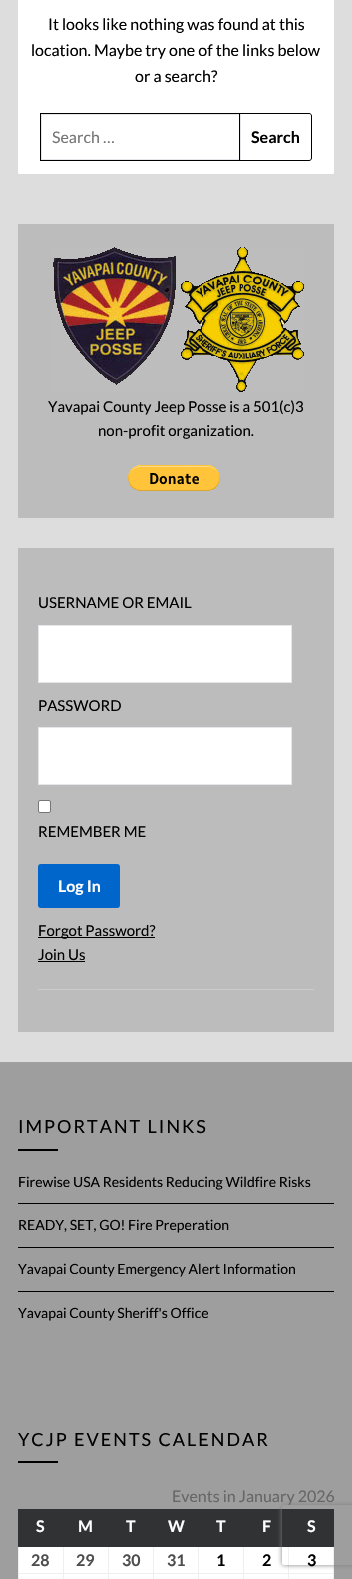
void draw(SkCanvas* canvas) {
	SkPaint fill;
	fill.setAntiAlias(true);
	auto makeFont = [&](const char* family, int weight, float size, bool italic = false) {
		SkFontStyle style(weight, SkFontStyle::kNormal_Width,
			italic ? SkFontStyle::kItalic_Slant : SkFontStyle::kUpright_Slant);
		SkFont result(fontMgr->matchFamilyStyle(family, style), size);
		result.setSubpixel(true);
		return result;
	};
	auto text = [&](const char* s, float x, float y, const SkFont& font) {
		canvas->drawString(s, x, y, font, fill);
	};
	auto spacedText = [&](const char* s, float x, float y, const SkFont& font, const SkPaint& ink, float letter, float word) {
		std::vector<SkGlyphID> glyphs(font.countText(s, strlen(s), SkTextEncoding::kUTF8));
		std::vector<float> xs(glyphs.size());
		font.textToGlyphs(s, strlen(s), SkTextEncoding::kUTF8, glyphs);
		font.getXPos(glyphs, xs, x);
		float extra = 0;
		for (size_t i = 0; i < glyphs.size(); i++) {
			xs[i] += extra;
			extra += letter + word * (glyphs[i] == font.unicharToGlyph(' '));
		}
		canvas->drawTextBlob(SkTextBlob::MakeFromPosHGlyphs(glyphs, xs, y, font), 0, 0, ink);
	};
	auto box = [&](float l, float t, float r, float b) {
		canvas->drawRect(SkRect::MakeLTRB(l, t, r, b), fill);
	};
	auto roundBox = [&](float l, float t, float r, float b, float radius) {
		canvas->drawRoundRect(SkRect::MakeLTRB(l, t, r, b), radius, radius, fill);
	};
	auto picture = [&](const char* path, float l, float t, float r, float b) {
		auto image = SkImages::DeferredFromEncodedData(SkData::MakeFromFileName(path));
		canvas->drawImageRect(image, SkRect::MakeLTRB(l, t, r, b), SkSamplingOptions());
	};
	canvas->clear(0xFFDDDDDD);
	fill.setColor(0xFFFFFFFF);
	roundBox(18, -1, 334, 174, 1);
	fill.setColor(0xFF000000);
	box(40, 113, 241, 114);
	box(40, 160, 241, 161);
	box(40, 113, 41, 161);
	fill.setStyle(SkPaint::kStroke_Style);
	fill.setStrokeWidth(1);
	fill.setColor(0xFFE5E6E9);
	canvas->drawRect(SkRect::MakeLTRB(41.5f, 114.5f, 240.5f, 159.5f), fill);
	fill.setColor(0xFF000000);
	canvas->drawPath(SkPathBuilder().moveTo(239.5f, 113.5f).lineTo(309, 113.5f).cubicTo(310.5f, 113.5f, 311.5f, 114.5f, 311.5f, 116).lineTo(311.5f, 158).cubicTo(311.5f, 159.5f, 310.5f, 160.5f, 309, 160.5f).lineTo(239.5f, 160.5f).close().detach(), fill);
	fill.setStyle(SkPaint::kFill_Style);
	fill.setColor(0xFFBCBCBC);
	roundBox(18, 224, 334, 518, 1);
	picture("image0.png", 53, 247, 304, 392);
	picture("image1.png", 128, 465, 220, 491);
	roundBox(18, 548, 334, 1032, 1);
	fill.setColor(0xFFFFFFFF);
	canvas->drawRect(SkRect::MakeLTRB(38.5f, 625.5f, 291.5f, 682.5f), fill);
	fill.setStyle(SkPaint::kStroke_Style);
	fill.setColor(0xFFE5E6E9);
	canvas->drawRect(SkRect::MakeLTRB(38.5f, 625.5f, 291.5f, 682.5f), fill);
	fill.setStyle(SkPaint::kFill_Style);
	fill.setColor(0xFFFFFFFF);
	canvas->drawRect(SkRect::MakeLTRB(38.5f, 727.5f, 291.5f, 784.5f), fill);
	fill.setStyle(SkPaint::kStroke_Style);
	fill.setColor(0xFFE5E6E9);
	canvas->drawRect(SkRect::MakeLTRB(38.5f, 727.5f, 291.5f, 784.5f), fill);
	fill.setStyle(SkPaint::kFill_Style);
	fill.setColor(0xFFFFFFFF);
	canvas->drawRoundRect(SkRect::MakeLTRB(38.5f, 800.5f, 50.5f, 812.5f), 1.5f, 1.5f, fill);
	fill.setStyle(SkPaint::kStroke_Style);
	fill.setColor(0xFF767676);
	canvas->drawRoundRect(SkRect::MakeLTRB(38.5f, 800.5f, 50.5f, 812.5f), 1.5f, 1.5f, fill);
	fill.setStyle(SkPaint::kFill_Style);
	fill.setColor(0xFF0066CC);
	roundBox(38, 864, 120, 908, 3);
	fill.setColor(0xFF000000);
	box(38, 937, 155, 938);
	box(38, 961, 85, 962);
	fill.setColor(0xFFCCCCCC);
	box(38, 989, 314, 990);
	fill.setColor(0xFF9E9E9E);
	box(0, 1062, 352, 1579);
	fill.setColor(0xFF000000);
	box(18, 1149, 58, 1151);
	box(18, 1203, 334, 1204);
	box(18, 1247, 334, 1248);
	box(18, 1291, 334, 1292);
	box(18, 1461, 58, 1463);
	fill.setColor(0xFFFFFFFF);
	box(19, 1547, 333, 1579);
	fill.setColor(0xFFEFEFEF);
	box(288, 1573, 334, 1574);
	box(288, 1573, 289, 1579);
	box(243, 1573, 289, 1574);
	box(243, 1573, 244, 1579);
	box(198, 1573, 244, 1574);
	box(198, 1573, 199, 1579);
	box(153, 1573, 199, 1574);
	box(153, 1573, 154, 1579);
	box(108, 1573, 154, 1574);
	box(108, 1573, 109, 1579);
	box(63, 1573, 109, 1574);
	box(63, 1573, 64, 1579);
	box(18, 1573, 64, 1574);
	box(18, 1544, 19, 1579);
	box(333, 1544, 334, 1579);
	box(63, 1544, 64, 1574);
	box(108, 1544, 109, 1574);
	box(153, 1544, 154, 1574);
	box(198, 1544, 199, 1574);
	box(243, 1544, 244, 1574);
	box(288, 1544, 289, 1574);
	fill.setColor(0xFF313233);
	box(18, 1543, 334, 1547);
	box(18, 1509, 334, 1543);
	canvas->save();
	canvas->clipPath(SkPathBuilder(SkPathFillType::kEvenOdd).moveTo(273, 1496).lineTo(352, 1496).lineTo(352, 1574).lineTo(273, 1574).close().moveTo(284, 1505).lineTo(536, 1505).cubicTo(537, 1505, 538, 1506, 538, 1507).lineTo(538, 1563).cubicTo(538, 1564, 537, 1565, 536, 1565).lineTo(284, 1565).cubicTo(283, 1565, 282, 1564, 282, 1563).lineTo(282, 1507).cubicTo(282, 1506, 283, 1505, 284, 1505).close().detach(), true);
	fill.setColor(0xFF808080);
	fill.setMaskFilter(SkMaskFilter::MakeBlur(kNormal_SkBlurStyle, 2.5f));
	canvas->drawRoundRect(SkRect::MakeLTRB(282, 1505, 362, 1565), 2, 2, fill);
	fill.setMaskFilter(nullptr);
	canvas->restore();
	auto font1 = makeFont("Lato", 400, 16);
	fill.setColor(0xFF000000);
	text("It looks like nothing was found at this", 48, 30, font1);
	text("location. Maybe try one of the links below", 31, 56, font1);
	text("or a search?", 135, 82, font1);
	fill.setColor(0xFF757575);
	text("Search …", 52, 143, font1);
	auto font2 = makeFont("Lato", 700, 16);
	fill.setColor(0xFF000000);
	text("Search", 251, 143, font2);
	auto font3 = makeFont("Lato", 400, 15);
	text("Yavapai County Jeep Posse is a 501(c)3", 48, 412, font3);
	text("non-profit organization.", 98, 436, font3);
	text("USERNAME OR EMAIL", 38, 608, font3);
	text("PASSWORD", 38, 711, font3);
	text("REMEMBER ME", 38, 837, font3);
	fill.setColor(0xFFFFFFFF);
	text("Log In", 58, 892, font2);
	fill.setColor(0xFF000000);
	text("Forgot Password?", 38, 936, font3);
	text("Join Us", 38, 960, font3);
	auto font4 = makeFont("Lato", 400, 18);
	spacedText("IMPORTANT LINKS", 18, 1133, font4, fill, 2, 0);
	auto font5 = makeFont("Lato", 400, 14);
	text("Firewise USA Residents Reducing Wildfire Risks", 18, 1187, font5);
	text("READY, SET, GO! Fire Preperation", 18, 1230, font5);
	text("Yavapai County Emergency Alert Information", 18, 1274, font5);
	text("Yavapai County Sheriff's Office", 18, 1318, font5);
	spacedText("YCJP EVENTS CALENDAR", 18, 1446, font4, fill, 2, 0);
	fill.setColor(0xFF666666);
	text("Events in January 2026", 172, 1502, font1);
	fill.setColor(0xFFFFFFFF);
	text("S", 36, 1532, font2);
	text("M", 78, 1532, font2);
	text("T", 126, 1532, font2);
	text("W", 168, 1532, font2);
	text("T", 216, 1532, font2);
	text("F", 262, 1532, font2);
	text("S", 307, 1532, font2);
	fill.setColor(0xFF4D4D4D);
	text("28", 31, 1566, font2);
	text("29", 76, 1566, font2);
	text("30", 122, 1566, font2);
	text("31", 167, 1566, font2);
	fill.setColor(0xFF000000);
	text("1", 216, 1566, font2);
	text("2", 262, 1566, font2);
	text("3", 307, 1566, font2);
}
